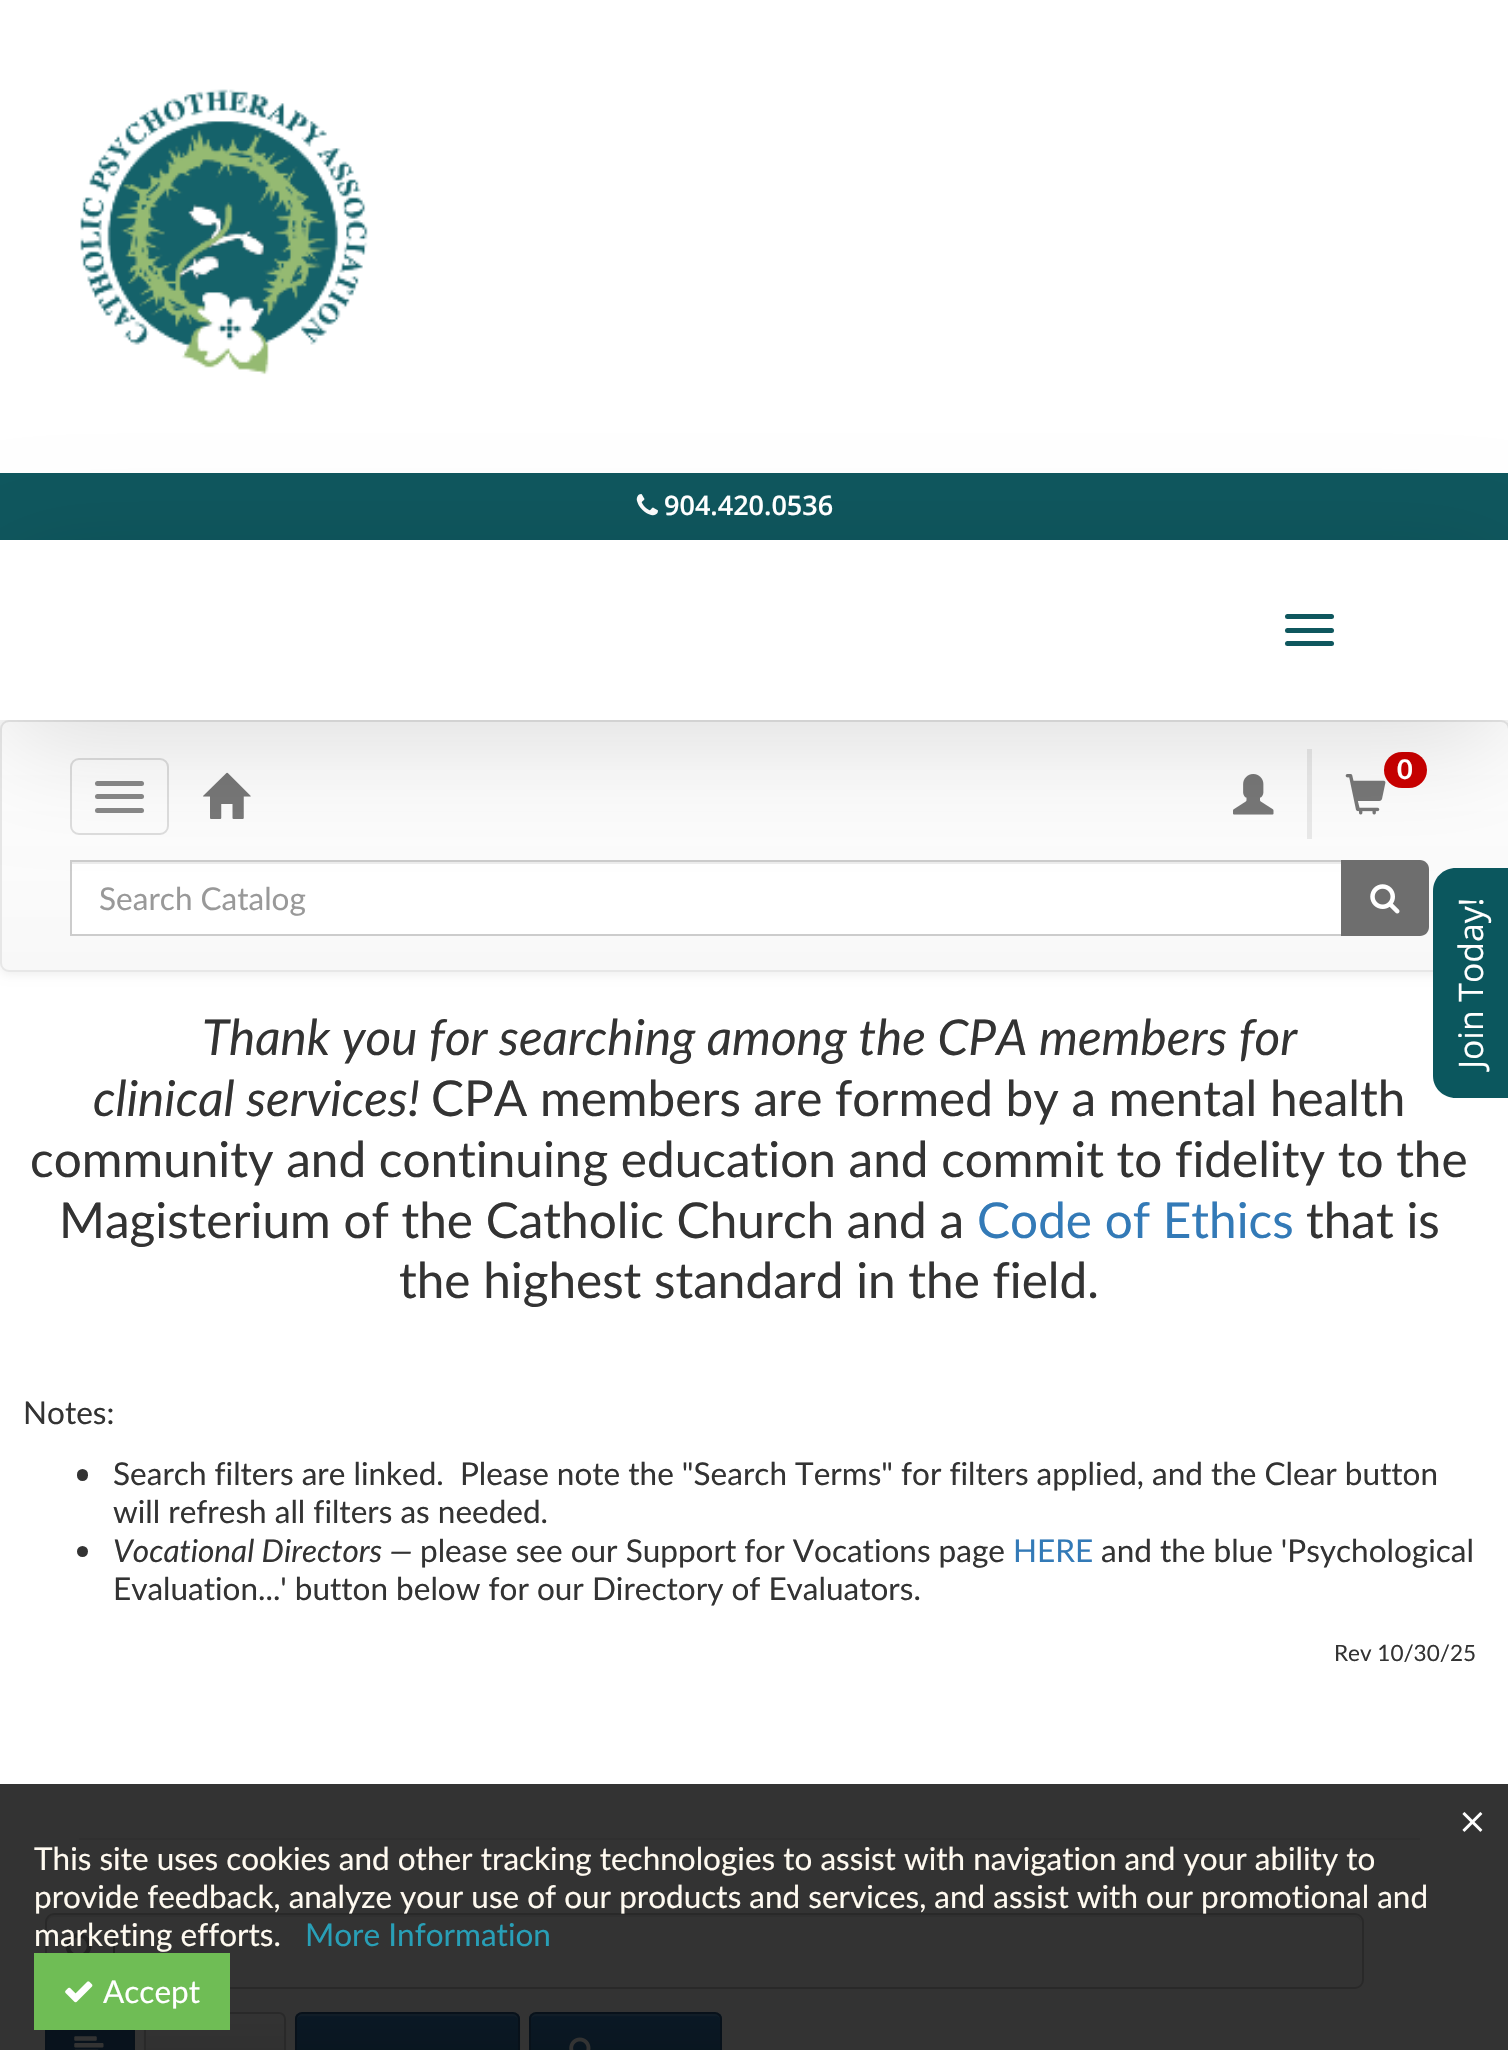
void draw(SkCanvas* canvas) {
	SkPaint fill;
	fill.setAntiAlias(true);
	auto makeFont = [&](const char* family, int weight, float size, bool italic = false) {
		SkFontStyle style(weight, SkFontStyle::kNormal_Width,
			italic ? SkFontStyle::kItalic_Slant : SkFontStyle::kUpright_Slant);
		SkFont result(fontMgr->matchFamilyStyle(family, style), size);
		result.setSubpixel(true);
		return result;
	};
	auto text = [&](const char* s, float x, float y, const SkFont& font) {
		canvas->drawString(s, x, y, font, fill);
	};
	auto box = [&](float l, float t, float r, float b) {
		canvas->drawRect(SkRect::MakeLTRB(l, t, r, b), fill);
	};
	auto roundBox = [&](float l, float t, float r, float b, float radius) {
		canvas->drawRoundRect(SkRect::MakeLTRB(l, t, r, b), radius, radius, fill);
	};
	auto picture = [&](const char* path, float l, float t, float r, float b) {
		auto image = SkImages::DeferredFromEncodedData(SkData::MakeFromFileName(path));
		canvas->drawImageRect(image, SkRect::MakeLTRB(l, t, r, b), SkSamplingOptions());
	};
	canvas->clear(0xFFFFFFFF);
	picture("image0.png", 80, 89, 368, 375);
	fill.setColor(0xFF0F575E);
	box(0, 473, 1508, 540);
	picture("image1.png", 636, 494, 658, 516);
	fill.setColor(0x12000000);
	fill.setMaskFilter(SkMaskFilter::MakeBlur(kNormal_SkBlurStyle, 5.5f));
	canvas->drawRoundRect(SkRect::MakeLTRB(0, 722, 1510, 974), 9, 9, fill);
	fill.setMaskFilter(nullptr);
	canvas->save();
	canvas->clipPath(SkPathBuilder().moveTo(9, 720).lineTo(1501, 720).cubicTo(1506, 720, 1510, 724, 1510, 729).lineTo(1510, 963).cubicTo(1510, 968, 1506, 972, 1501, 972).lineTo(9, 972).cubicTo(4, 972, 0, 968, 0, 963).lineTo(0, 729).cubicTo(0, 724, 4, 720, 9, 720).close().detach(), true);
	{
		const SkColor colors[] = {0xFFFFFFFF, 0xFFF8F8F8};
		const float stops[] = {0, 1};
		const SkPoint ends[] = {{755, 722}, {755, 970}};
		fill.setShader(SkGradientShader::MakeLinear(ends, colors, stops, 2, SkTileMode::kClamp));
		fill.setAlpha(255);
	}
	box(0, 722, 1508, 970);
	canvas->restore();
	fill.setStyle(SkPaint::kStroke_Style);
	fill.setStrokeWidth(2);
	fill.setShader(nullptr);
	fill.setColor(0xFFE7E7E7);
	canvas->drawRoundRect(SkRect::MakeLTRB(1, 721, 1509, 971), 8, 8, fill);
	fill.setColor(0xFFDDDDDD);
	canvas->drawRoundRect(SkRect::MakeLTRB(71, 759, 168, 834), 8, 8, fill);
	fill.setStyle(SkPaint::kFill_Style);
	fill.setColor(0xFF888888);
	roundBox(95, 781, 144, 786, 2.5f);
	roundBox(95, 794, 144, 799, 2.5f);
	roundBox(95, 808, 144, 813, 2.5f);
	fill.setColor(0xFFE9E9E9);
	box(1307, 749, 1312, 839);
	picture("image2.png", 1345, 774, 1386, 815);
	fill.setColor(0xFFCC0000);
	roundBox(1384, 752, 1427, 788, 18);
	picture("image3.png", 1233, 774, 1274, 815);
	picture("image4.png", 203, 772, 251, 819);
	fill.setColor(0xFFFFFFFF);
	box(72, 864, 1341, 934);
	fill.setColor(0xFFECECEC);
	box(72, 862, 1341, 864);
	fill.setStyle(SkPaint::kStroke_Style);
	fill.setColor(0xFFCCCCCC);
	canvas->drawRect(SkRect::MakeLTRB(71, 861, 1342, 935), fill);
	fill.setStyle(SkPaint::kFill_Style);
	fill.setColor(0xFF6E6E6E);
	canvas->drawPath(SkPathBuilder().moveTo(1341, 860).lineTo(1420, 860).cubicTo(1425, 860, 1429, 864, 1429, 869).lineTo(1429, 927).cubicTo(1429, 932, 1425, 936, 1420, 936).lineTo(1341, 936).close().detach(), fill);
	picture("image5.png", 1370, 884, 1400, 914);
	fill.setColor(0x24000000);
	fill.setMaskFilter(SkMaskFilter::MakeBlur(kNormal_SkBlurStyle, 56));
	canvas->drawRect(SkRect::MakeLTRB(5, 567, 1505, 738), fill);
	fill.setMaskFilter(nullptr);
	fill.setColor(0xFFFFFFFF);
	box(0, 540, 1508, 720);
	fill.setColor(0xFF0F575E);
	roundBox(1285, 614, 1334, 619, 2.5f);
	roundBox(1285, 628, 1334, 633, 2.5f);
	roundBox(1285, 641, 1334, 646, 2.5f);
	fill.setColor(0xFF0B575E);
	canvas->drawPath(SkPathBuilder().moveTo(1433, 1076).lineTo(1433, 891).cubicTo(1433, 878, 1443, 868, 1456, 868).lineTo(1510, 868).lineTo(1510, 1098).lineTo(1456, 1098).cubicTo(1443, 1098, 1433, 1088, 1433, 1076).close().detach(), fill);
	fill.setColor(0xFFEEEEEE);
	box(79, 1838, 1420, 1840);
	fill.setColor(0xFFECECEC);
	canvas->drawPath(SkPathBuilder().moveTo(54, 1917).lineTo(1354, 1917).cubicTo(1358, 1917, 1361, 1920, 1361, 1924).lineTo(1361, 1922).cubicTo(1361, 1918, 1358, 1915, 1354, 1915).lineTo(54, 1915).cubicTo(50, 1915, 47, 1918, 47, 1922).lineTo(47, 1924).cubicTo(47, 1920, 50, 1917, 54, 1917).close().detach(), fill);
	fill.setStyle(SkPaint::kStroke_Style);
	fill.setColor(0xFFCCCCCC);
	canvas->drawRoundRect(SkRect::MakeLTRB(46, 1914, 1363, 1988), 8, 8, fill);
	fill.setStyle(SkPaint::kFill_Style);
	fill.setColor(0xFFA2A2A2);
	box(113, 1933, 115, 1953);
	picture("image8.png", 65, 1933, 92, 1953);
	fill.setColor(0xFF265A88);
	box(47, 2030, 133, 2050);
	fill.setStyle(SkPaint::kStroke_Style);
	fill.setColor(0xFF245580);
	canvas->drawRect(SkRect::MakeLTRB(46, 2013, 134, 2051), fill);
	picture("image9.png", 74, 2036, 104, 2050);
	fill.setStyle(SkPaint::kFill_Style);
	fill.setColor(0x12000000);
	fill.setMaskFilter(SkMaskFilter::MakeBlur(kNormal_SkBlurStyle, 1));
	canvas->drawRoundRect(SkRect::MakeLTRB(144, 2014, 286, 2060), 7, 7, fill);
	fill.setMaskFilter(nullptr);
	canvas->save();
	canvas->clipPath(SkPathBuilder().moveTo(151, 2012).lineTo(279, 2012).cubicTo(283, 2012, 286, 2015, 286, 2019).lineTo(286, 2081).cubicTo(286, 2085, 283, 2088, 279, 2088).lineTo(151, 2088).cubicTo(147, 2088, 144, 2085, 144, 2081).lineTo(144, 2019).cubicTo(144, 2015, 147, 2012, 151, 2012).close().detach(), true);
	{
		const SkColor colors[] = {0xFFFFFFFF, 0xFFE0E0E0};
		const float stops[] = {0, 1};
		const SkPoint ends[] = {{215, 2014}, {215, 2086}};
		fill.setShader(SkGradientShader::MakeLinear(ends, colors, stops, 2, SkTileMode::kClamp));
		fill.setAlpha(255);
	}
	box(146, 2014, 286, 2050);
	canvas->restore();
	fill.setStyle(SkPaint::kStroke_Style);
	fill.setShader(nullptr);
	fill.setColor(0xFFCCCCCC);
	canvas->drawRoundRect(SkRect::MakeLTRB(145, 2013, 285, 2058), 6, 6, fill);
	fill.setStyle(SkPaint::kFill_Style);
	fill.setColor(0x12000000);
	fill.setMaskFilter(SkMaskFilter::MakeBlur(kNormal_SkBlurStyle, 1));
	canvas->drawRoundRect(SkRect::MakeLTRB(295, 2014, 520, 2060), 7, 7, fill);
	fill.setMaskFilter(nullptr);
	canvas->save();
	canvas->clipPath(SkPathBuilder().moveTo(302, 2012).lineTo(513, 2012).cubicTo(517, 2012, 520, 2015, 520, 2019).lineTo(520, 2081).cubicTo(520, 2085, 517, 2088, 513, 2088).lineTo(302, 2088).cubicTo(298, 2088, 295, 2085, 295, 2081).lineTo(295, 2019).cubicTo(295, 2015, 298, 2012, 302, 2012).close().detach(), true);
	{
		const SkColor colors[] = {0xFF337AB7, 0xFF265A88};
		const float stops[] = {0, 1};
		const SkPoint ends[] = {{407, 2014}, {407, 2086}};
		fill.setShader(SkGradientShader::MakeLinear(ends, colors, stops, 2, SkTileMode::kClamp));
		fill.setAlpha(255);
	}
	box(295, 2014, 520, 2050);
	canvas->restore();
	fill.setShader(nullptr);
	fill.setColor(0xFF528EC1);
	canvas->drawPath(SkPathBuilder().moveTo(302, 2016).lineTo(513, 2016).cubicTo(515, 2016, 518, 2018, 518, 2020).cubicTo(518, 2017, 516, 2014, 513, 2014).lineTo(301, 2014).cubicTo(298, 2015, 297, 2017, 297, 2020).cubicTo(297, 2018, 299, 2016, 302, 2016).close().detach(), fill);
	fill.setStyle(SkPaint::kStroke_Style);
	fill.setColor(0xFF245580);
	canvas->drawRoundRect(SkRect::MakeLTRB(296, 2013, 519, 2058), 6, 6, fill);
	canvas->save();
	canvas->clipPath(SkPathBuilder().moveTo(536, 2012).lineTo(715, 2012).cubicTo(719, 2012, 722, 2015, 722, 2019).lineTo(722, 2081).cubicTo(722, 2085, 719, 2088, 715, 2088).lineTo(536, 2088).cubicTo(532, 2088, 529, 2085, 529, 2081).lineTo(529, 2019).cubicTo(529, 2015, 532, 2012, 536, 2012).close().detach(), true);
	fill.setStyle(SkPaint::kFill_Style);
	{
		const SkColor colors[] = {0xFF337AB7, 0xFF265A88};
		const float stops[] = {0, 1};
		const SkPoint ends[] = {{626, 2014}, {626, 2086}};
		fill.setShader(SkGradientShader::MakeLinear(ends, colors, stops, 2, SkTileMode::kClamp));
		fill.setAlpha(255);
	}
	box(529, 2014, 722, 2050);
	canvas->restore();
	fill.setShader(nullptr);
	fill.setColor(0xFF528EC1);
	canvas->drawPath(SkPathBuilder().moveTo(536, 2016).lineTo(716, 2016).cubicTo(718, 2016, 720, 2018, 720, 2020).cubicTo(720, 2017, 719, 2015, 716, 2014).lineTo(535, 2014).cubicTo(532, 2015, 531, 2017, 531, 2020).cubicTo(531, 2018, 533, 2016, 536, 2016).close().detach(), fill);
	fill.setStyle(SkPaint::kStroke_Style);
	fill.setColor(0xFF245580);
	canvas->drawRoundRect(SkRect::MakeLTRB(530, 2013, 721, 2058), 6, 6, fill);
	picture("image10.png", 569, 2037, 591, 2050);
	fill.setStyle(SkPaint::kFill_Style);
	fill.setColor(0xCC000000);
	box(0, 1784, 1508, 2050);
	picture("image6.png", 1462, 1812, 1483, 1832);
	fill.setColor(0xFF6FBD55);
	box(34, 1953, 230, 2030);
	picture("image7.png", 65, 1981, 93, 2003);
	fill.setColor(0xFF333333);
	roundBox(77, 1469, 88, 1481, 5.5f);
	canvas->drawCircle(82.5f, 1551.5f, 5.5f, fill);
	auto font1 = makeFont("Open Sans", 600, 27);
	fill.setColor(0xFFFFFFFF);
	text("904.420.0536", 664, 515, font1);
	auto font2 = makeFont("Lato", 700, 27);
	text("0", 1397, 779, font2);
	auto font3 = makeFont("Lato", 400, 31.5f);
	fill.setColor(0xFF999999);
	text("Search Catalog", 99, 910, font3);
	auto font4 = makeFont("Open Sans", 400, 33.75f);
	fill.setColor(0xFFFFFFFF);
	canvas->save();
	canvas->rotate(-90, 1483, 1069);
	text("Join Today!", 1483, 1069, font4);
	canvas->restore();
	fill.setColor(0xFFFFFAF0);
	text("This site uses cookies and other tracking technologies to assist with navigation and your ability to", 34, 1870, font3);
	text("provide feedback, analyze your use of our products and services, and assist with our promotional and", 34, 1908, font3);
	text("marketing efforts.", 34, 1946, font3);
	fill.setColor(0xFF289FB7);
	text("More Information", 305, 1946, font3);
	fill.setColor(0xFFFFFFFF);
	text("Accept", 103, 2003, font3);
	auto font5 = makeFont("Lato", 400, 49.5f, true);
	fill.setColor(0xFF333333);
	text("Thank you for searching among the CPA members for", 202, 1055, font5);
	text("clinical services!", 93, 1116, font5);
	auto font6 = makeFont("Lato", 400, 49.5f);
	text("CPA members are formed by a mental health", 431, 1116, font6);
	text("community and continuing education and commit to fidelity to the", 30, 1177, font6);
	text("Magisterium of the Catholic Church and a", 59, 1238, font6);
	fill.setColor(0xFF337AB7);
	text("Code of Ethics", 977, 1238, font6);
	fill.setColor(0xFF333333);
	text("that is", 1306, 1238, font6);
	text("the highest standard in the field.", 399, 1298, font6);
	text("Notes:", 23, 1424, font3);
	text("Search filters are linked.  Please note the \"Search Terms\" for filters applied, and the Clear button", 113, 1485, font3);
	text("will refresh all filters as needed.", 113, 1523, font3);
	auto font7 = makeFont("Lato", 400, 31.5f, true);
	text("Vocational Directors —", 113, 1562, font7);
	text("please see our Support for Vocations page", 420, 1562, font3);
	fill.setColor(0xFF337AB7);
	text("HERE", 1013, 1562, font3);
	fill.setColor(0xFF333333);
	text("and the blue 'Psychological", 1101, 1562, font3);
	text("Evaluation...' button below for our Directory of Evaluators.", 113, 1600, font3);
	auto font8 = makeFont("Lato", 400, 22.5f);
	text("Rev 10/30/25", 1334, 1661, font8);
}
